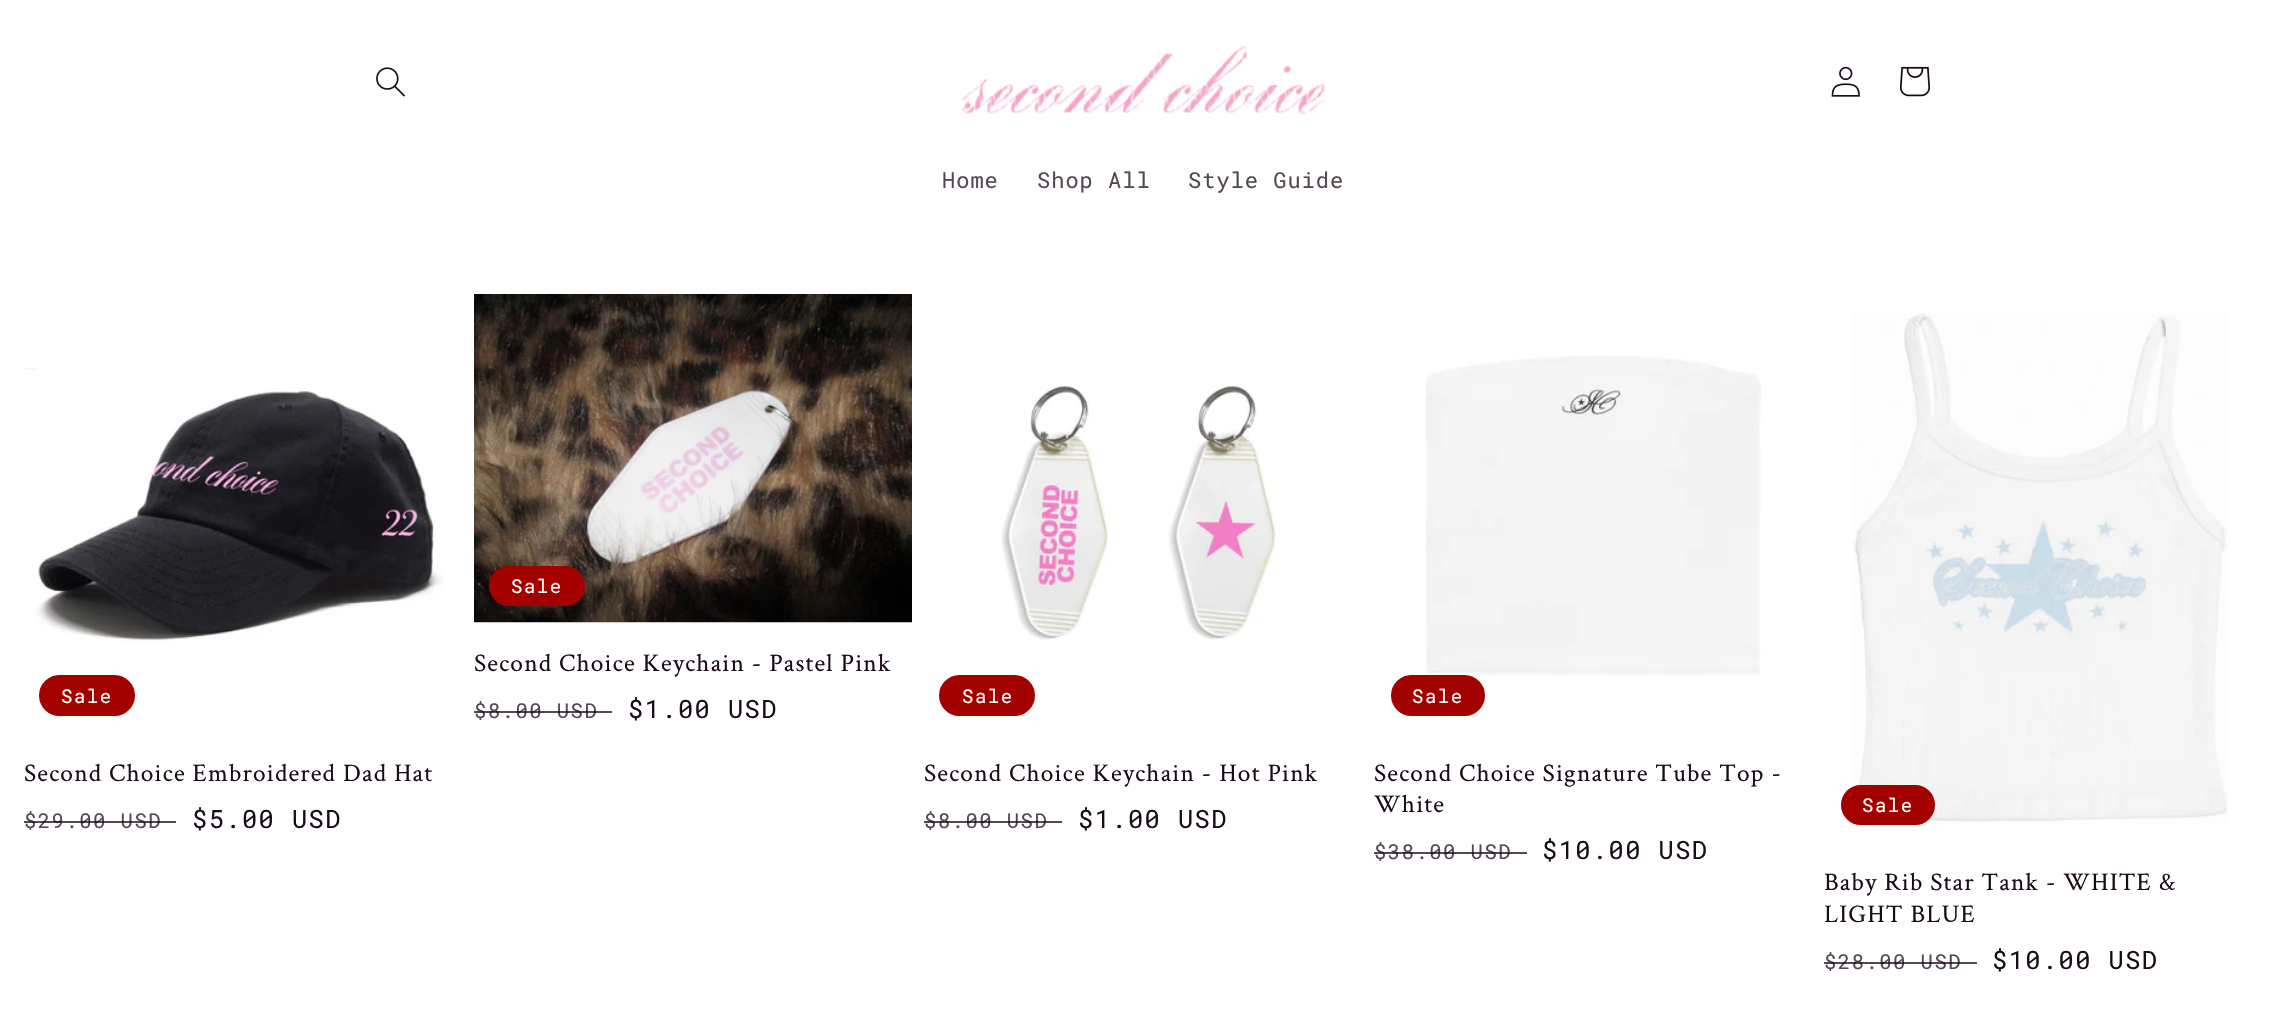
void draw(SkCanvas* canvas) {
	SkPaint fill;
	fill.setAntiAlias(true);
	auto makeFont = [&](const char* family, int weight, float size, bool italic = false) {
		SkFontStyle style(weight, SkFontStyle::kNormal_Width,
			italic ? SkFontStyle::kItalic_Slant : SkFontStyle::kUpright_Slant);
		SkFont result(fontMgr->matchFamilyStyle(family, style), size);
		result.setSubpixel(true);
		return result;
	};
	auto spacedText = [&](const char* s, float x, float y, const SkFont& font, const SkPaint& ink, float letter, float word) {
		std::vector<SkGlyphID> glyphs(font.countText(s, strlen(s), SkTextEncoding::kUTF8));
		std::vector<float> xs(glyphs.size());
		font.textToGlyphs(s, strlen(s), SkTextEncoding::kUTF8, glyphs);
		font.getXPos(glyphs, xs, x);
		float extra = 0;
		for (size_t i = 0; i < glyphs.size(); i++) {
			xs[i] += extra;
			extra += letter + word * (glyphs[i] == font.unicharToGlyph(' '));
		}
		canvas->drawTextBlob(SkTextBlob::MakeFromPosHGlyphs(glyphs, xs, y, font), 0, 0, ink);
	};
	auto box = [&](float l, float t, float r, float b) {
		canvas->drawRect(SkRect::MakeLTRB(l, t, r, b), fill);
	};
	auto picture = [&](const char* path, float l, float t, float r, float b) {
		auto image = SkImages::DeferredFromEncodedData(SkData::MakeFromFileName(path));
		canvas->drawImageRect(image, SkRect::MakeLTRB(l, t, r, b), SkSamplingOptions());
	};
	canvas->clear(0xFFFFFFFF);
	picture("image0.png", 376, 67, 405, 97);
	picture("image1.png", 961, 46, 1325, 115);
	picture("image2.png", 1831, 66, 1860, 97);
	picture("image3.png", 1900, 66, 1930, 97);
	picture("image4.png", 474, 294, 912, 623);
	fill.setColor(0xFFA30000);
	canvas->drawRoundRect(SkRect::MakeLTRB(490, 567, 584, 605), 19, 19, fill);
	fill.setStyle(SkPaint::kStroke_Style);
	fill.setStrokeWidth(2);
	canvas->drawRoundRect(SkRect::MakeLTRB(490, 567, 584, 605), 19, 19, fill);
	picture("image5.png", 24, 368, 443, 643);
	fill.setStyle(SkPaint::kFill_Style);
	canvas->drawRoundRect(SkRect::MakeLTRB(40, 676, 134, 715), 19.5f, 19.5f, fill);
	fill.setStyle(SkPaint::kStroke_Style);
	canvas->drawRoundRect(SkRect::MakeLTRB(40, 676, 134, 715), 19.5f, 19.5f, fill);
	picture("image6.png", 1001, 386, 1276, 640);
	fill.setStyle(SkPaint::kFill_Style);
	canvas->drawRoundRect(SkRect::MakeLTRB(940, 676, 1034, 715), 19.5f, 19.5f, fill);
	fill.setStyle(SkPaint::kStroke_Style);
	canvas->drawRoundRect(SkRect::MakeLTRB(940, 676, 1034, 715), 19.5f, 19.5f, fill);
	picture("image7.png", 1426, 355, 1762, 676);
	fill.setStyle(SkPaint::kFill_Style);
	canvas->drawRoundRect(SkRect::MakeLTRB(1392, 676, 1484, 715), 19.5f, 19.5f, fill);
	fill.setStyle(SkPaint::kStroke_Style);
	canvas->drawRoundRect(SkRect::MakeLTRB(1392, 676, 1484, 715), 19.5f, 19.5f, fill);
	picture("image8.png", 1853, 313, 2229, 825);
	fill.setStyle(SkPaint::kFill_Style);
	canvas->drawRoundRect(SkRect::MakeLTRB(1842, 786, 1934, 824), 19, 19, fill);
	fill.setStyle(SkPaint::kStroke_Style);
	canvas->drawRoundRect(SkRect::MakeLTRB(1842, 786, 1934, 824), 19, 19, fill);
	auto font1 = makeFont("Roboto Mono", 400, 22);
	fill.setStyle(SkPaint::kFill_Style);
	fill.setColor(0xFF534853);
	spacedText("Home", 942, 188, font1, fill, 1, 0);
	spacedText("Shop All", 1037, 188, font1, fill, 1, 0);
	spacedText("Style Guide", 1188, 188, font1, fill, 1, 0);
	auto font2 = makeFont("Roboto Mono", 400, 19);
	fill.setColor(0xFFFFFFFF);
	spacedText("Sale", 511, 593, font2, fill, 1.5f, 0);
	auto font3 = makeFont("Crimson Text", 400, 25.4f);
	fill.setColor(0xFF190B19);
	spacedText("Second Choice Keychain - Pastel Pink", 474, 671, font3, fill, 1.15f, 0);
	auto font4 = makeFont("Roboto Mono", 400, 20.5f);
	fill.setColor(0xFF534853);
	spacedText("$8.00 USD", 474, 718, font4, fill, 1.5f, 0);
	fill.setColor(0xBF190B19);
	box(474, 711, 612, 713);
	auto font5 = makeFont("Roboto Mono", 400, 25.25f);
	fill.setColor(0xFF190B19);
	spacedText("$1.00 USD", 628, 718, font5, fill, 1.5f, 0);
	fill.setColor(0xFFFFFFFF);
	spacedText("Sale", 61, 703, font2, fill, 1.5f, 0);
	fill.setColor(0xFF190B19);
	spacedText("Second Choice Embroidered Dad Hat", 24, 781, font3, fill, 1.15f, 0);
	fill.setColor(0xFF534853);
	spacedText("$29.00 USD", 24, 828, font4, fill, 1.5f, 0);
	fill.setColor(0xBF190B19);
	box(24, 821, 176, 823);
	fill.setColor(0xFF190B19);
	spacedText("$5.00 USD", 192, 828, font5, fill, 1.5f, 0);
	fill.setColor(0xFFFFFFFF);
	spacedText("Sale", 962, 703, font2, fill, 1.5f, 0);
	fill.setColor(0xFF190B19);
	spacedText("Second Choice Keychain - Hot Pink", 924, 781, font3, fill, 1.15f, 0);
	fill.setColor(0xFF534853);
	spacedText("$8.00 USD", 924, 828, font4, fill, 1.5f, 0);
	fill.setColor(0xBF190B19);
	box(924, 821, 1062, 823);
	fill.setColor(0xFF190B19);
	spacedText("$1.00 USD", 1078, 828, font5, fill, 1.5f, 0);
	fill.setColor(0xFFFFFFFF);
	spacedText("Sale", 1412, 703, font2, fill, 1.5f, 0);
	fill.setColor(0xFF190B19);
	spacedText("Second Choice Signature Tube Top -", 1374, 781, font3, fill, 1.15f, 0);
	spacedText("White", 1374, 812, font3, fill, 1.15f, 0);
	fill.setColor(0xFF534853);
	spacedText("$38.00 USD", 1374, 859, font4, fill, 1.5f, 0);
	fill.setColor(0xBF190B19);
	box(1374, 852, 1527, 854);
	fill.setColor(0xFF190B19);
	spacedText("$10.00 USD", 1542, 859, font5, fill, 1.5f, 0);
	fill.setColor(0xFFFFFFFF);
	spacedText("Sale", 1862, 812, font2, fill, 1.5f, 0);
	fill.setColor(0xFF190B19);
	spacedText("Baby Rib Star Tank - WHITE &", 1824, 890, font3, fill, 1.15f, 0);
	spacedText("LIGHT BLUE", 1824, 922, font3, fill, 1.15f, 0);
	fill.setColor(0xFF534853);
	spacedText("$28.00 USD", 1824, 969, font4, fill, 1.5f, 0);
	fill.setColor(0xBF190B19);
	box(1824, 962, 1977, 964);
	fill.setColor(0xFF190B19);
	spacedText("$10.00 USD", 1992, 969, font5, fill, 1.5f, 0);
}
